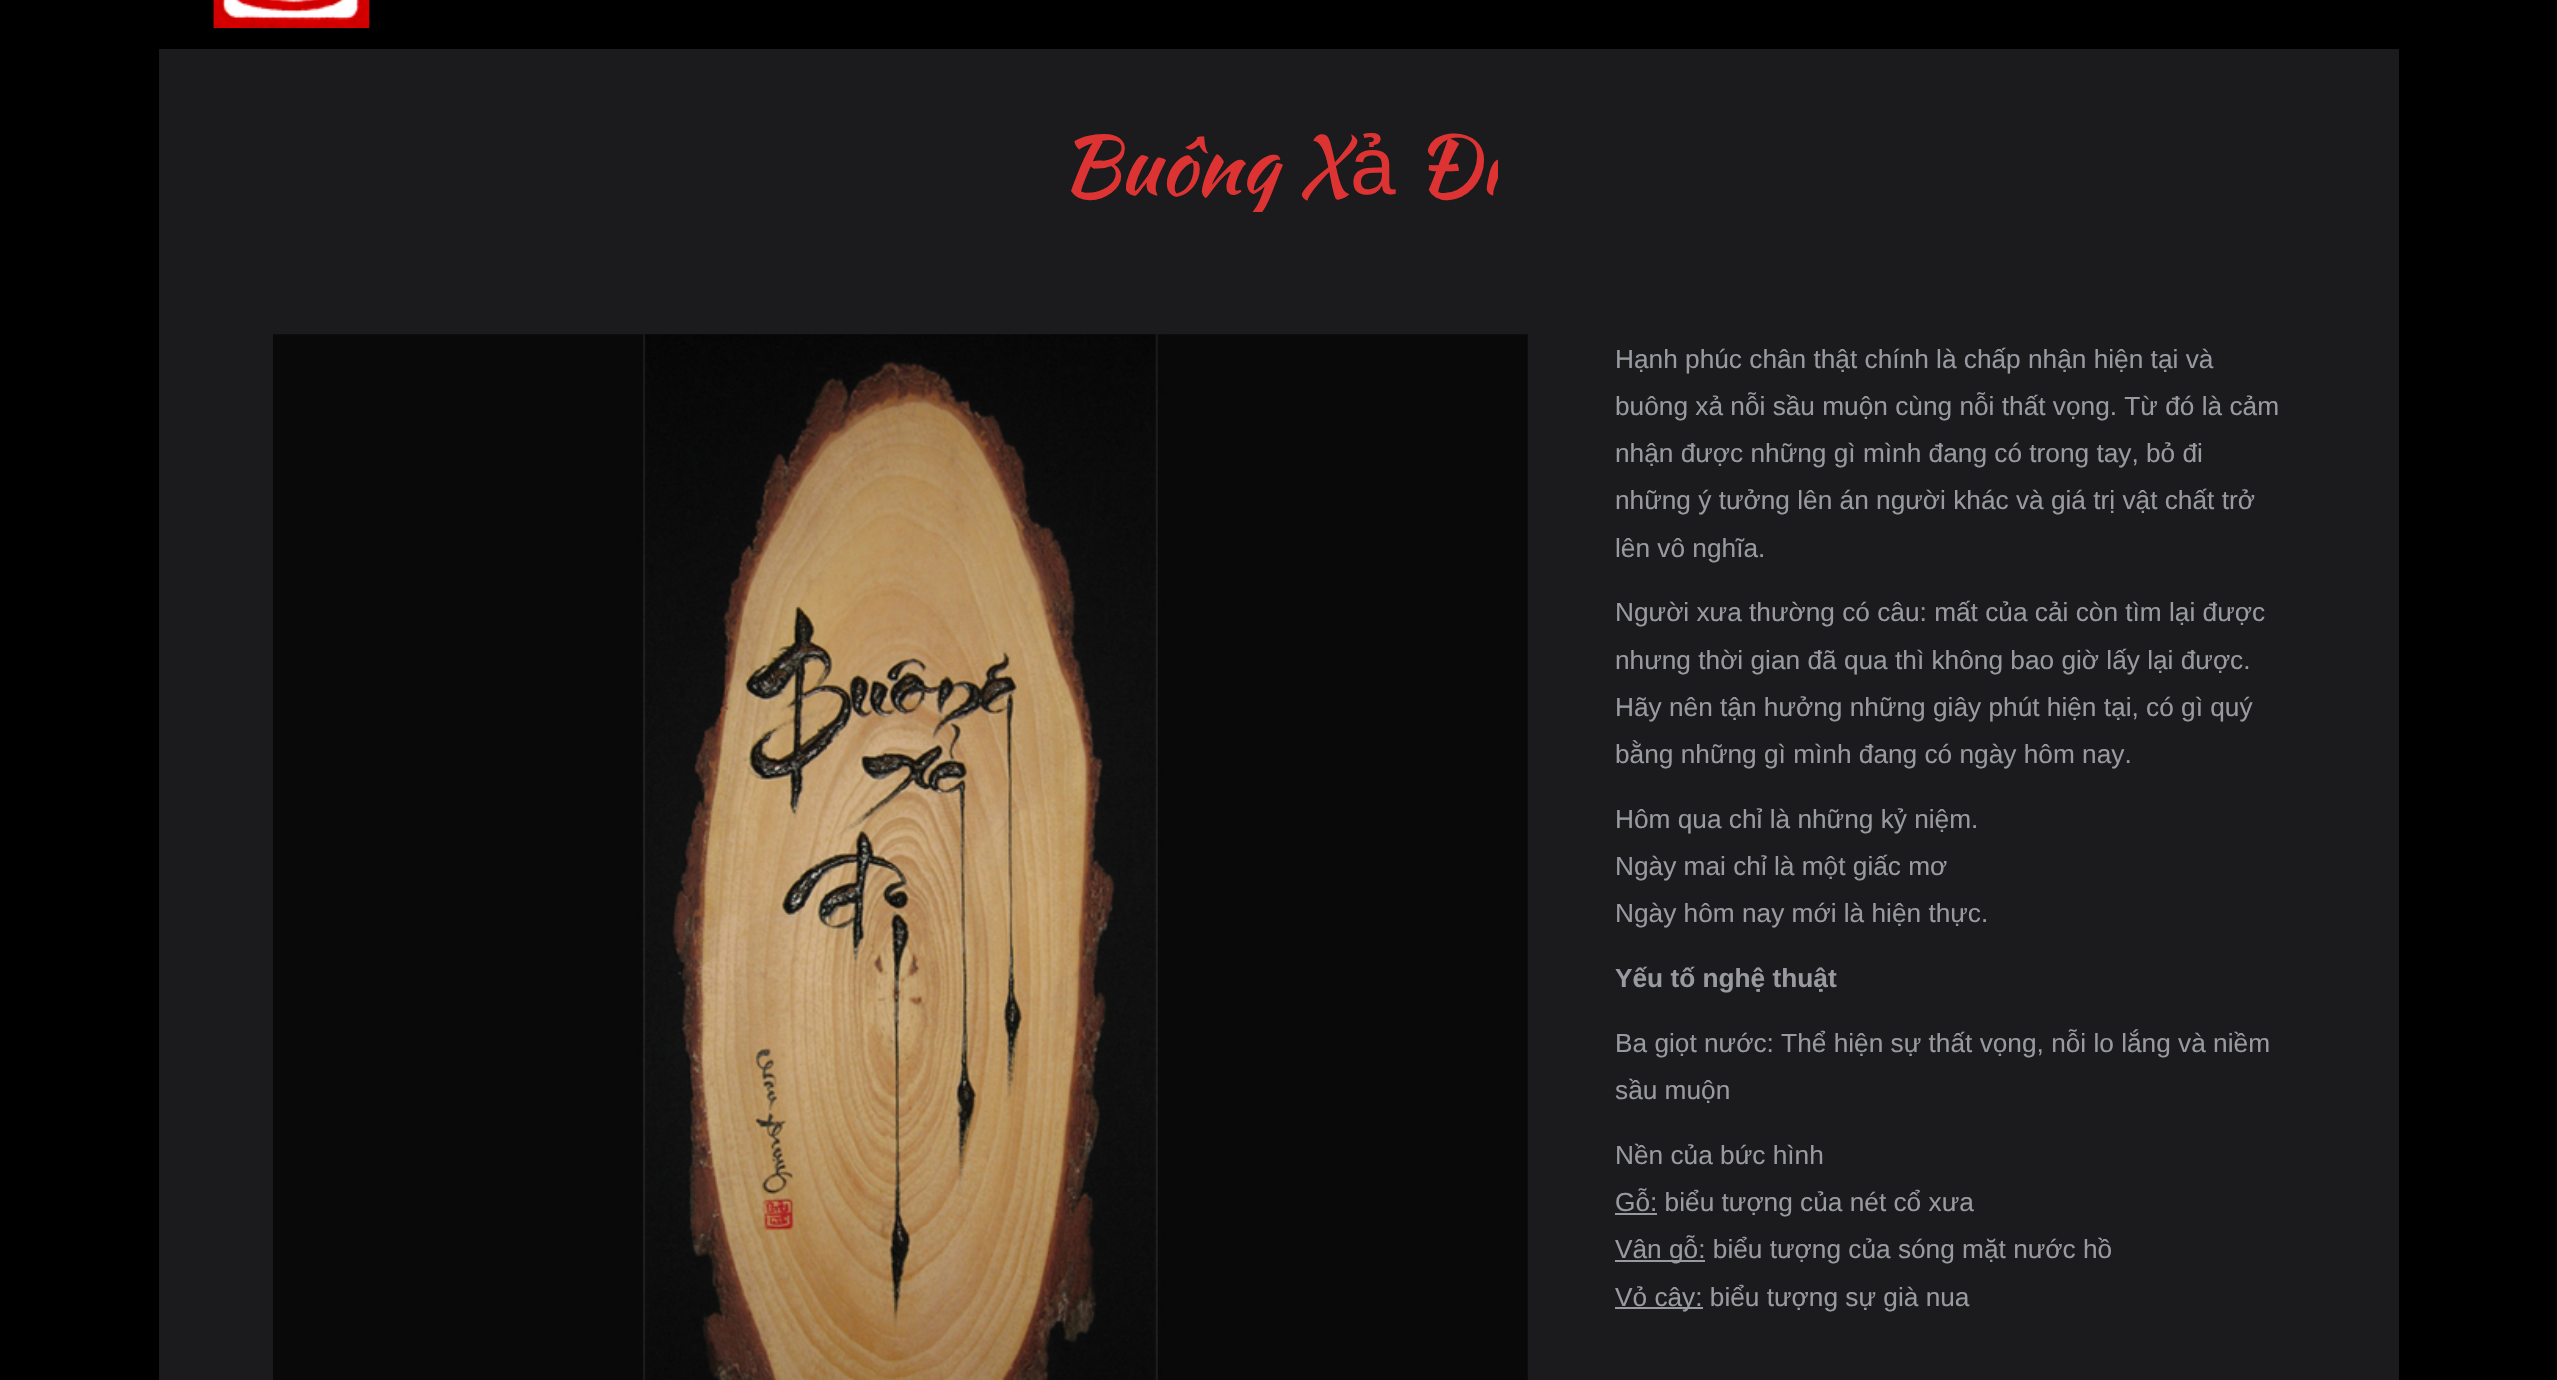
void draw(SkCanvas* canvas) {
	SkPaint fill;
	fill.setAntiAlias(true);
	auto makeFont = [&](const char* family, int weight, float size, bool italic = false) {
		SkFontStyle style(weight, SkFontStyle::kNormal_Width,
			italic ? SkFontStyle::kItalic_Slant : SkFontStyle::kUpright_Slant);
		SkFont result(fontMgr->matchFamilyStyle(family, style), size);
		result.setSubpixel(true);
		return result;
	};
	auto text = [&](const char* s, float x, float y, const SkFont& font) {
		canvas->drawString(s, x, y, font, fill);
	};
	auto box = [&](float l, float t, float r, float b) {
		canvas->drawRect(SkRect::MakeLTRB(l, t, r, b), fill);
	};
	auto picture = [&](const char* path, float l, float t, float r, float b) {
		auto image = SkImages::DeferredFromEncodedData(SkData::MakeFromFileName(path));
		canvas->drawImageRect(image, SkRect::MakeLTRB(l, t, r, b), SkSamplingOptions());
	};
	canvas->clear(0xFF000000);
	fill.setColor(0xFF1B1B1D);
	box(159, 49, 2399, 1380);
	picture("image0.png", 213, 0, 370, 28);
	picture("image1.png", 273, 334, 1528, 1380);
	fill.setColor(0xFF989A9F);
	box(1615, 1213, 1657, 1215);
	box(1615, 1260, 1705, 1262);
	box(1615, 1307, 1703, 1309);
	canvas->save();
	canvas->clipRect(SkRect::MakeLTRB(1061, 119, 1498, 212));
	auto font1 = makeFont("Kaushan Script", 400, 82);
	fill.setColor(0xFFDD3333);
	text("Buông X", 1060, 194, font1);
	canvas->restore();
	auto font2 = makeFont("Liberation Sans", 400, 82);
	text("ả", 1350, 194, font2);
	canvas->save();
	canvas->clipRect(SkRect::MakeLTRB(1061, 119, 1498, 212));
	text("Ði", 1415, 194, font1);
	canvas->restore();
	auto font3 = makeFont("Liberation Sans", 400, 26.25f);
	fill.setColor(0xFF989A9F);
	text("Hạnh phúc chân thật chính là chấp nhận hiện tại và", 1615, 368, font3);
	text("buông xả nỗi sầu muộn cùng nỗi thất vọng. Từ đó là cảm", 1615, 415, font3);
	text("nhận được những gì mình đang có trong tay, bỏ đi", 1615, 462, font3);
	text("những ý tưởng lên án người khác và giá trị vật chất trở", 1615, 509, font3);
	text("lên vô nghĩa.", 1615, 557, font3);
	text("Người xưa thường có câu: mất của cải còn tìm lại được", 1615, 621, font3);
	text("nhưng thời gian đã qua thì không bao giờ lấy lại được.", 1615, 669, font3);
	text("Hãy nên tận hưởng những giây phút hiện tại, có gì quý", 1615, 716, font3);
	text("bằng những gì mình đang có ngày hôm nay.", 1615, 763, font3);
	text("Hôm qua chỉ là những kỷ niệm.", 1615, 828, font3);
	text("Ngày mai chỉ là một giấc mơ", 1615, 875, font3);
	text("Ngày hôm nay mới là hiện thực.", 1615, 922, font3);
	auto font4 = makeFont("Liberation Sans", 700, 26.25f);
	text("Yếu tố nghệ thuật", 1615, 987, font4);
	text("Ba giọt nước: Thể hiện sự thất vọng, nỗi lo lắng và niềm", 1615, 1052, font3);
	text("sầu muộn", 1615, 1099, font3);
	text("Nền của bức hình", 1615, 1164, font3);
	text("Gỗ: biểu tượng của nét cổ xưa", 1615, 1211, font3);
	text("Vân gỗ: biểu tượng của sóng mặt nước hồ", 1615, 1258, font3);
	text("Vỏ cây: biểu tượng sự già nua", 1615, 1306, font3);
}
